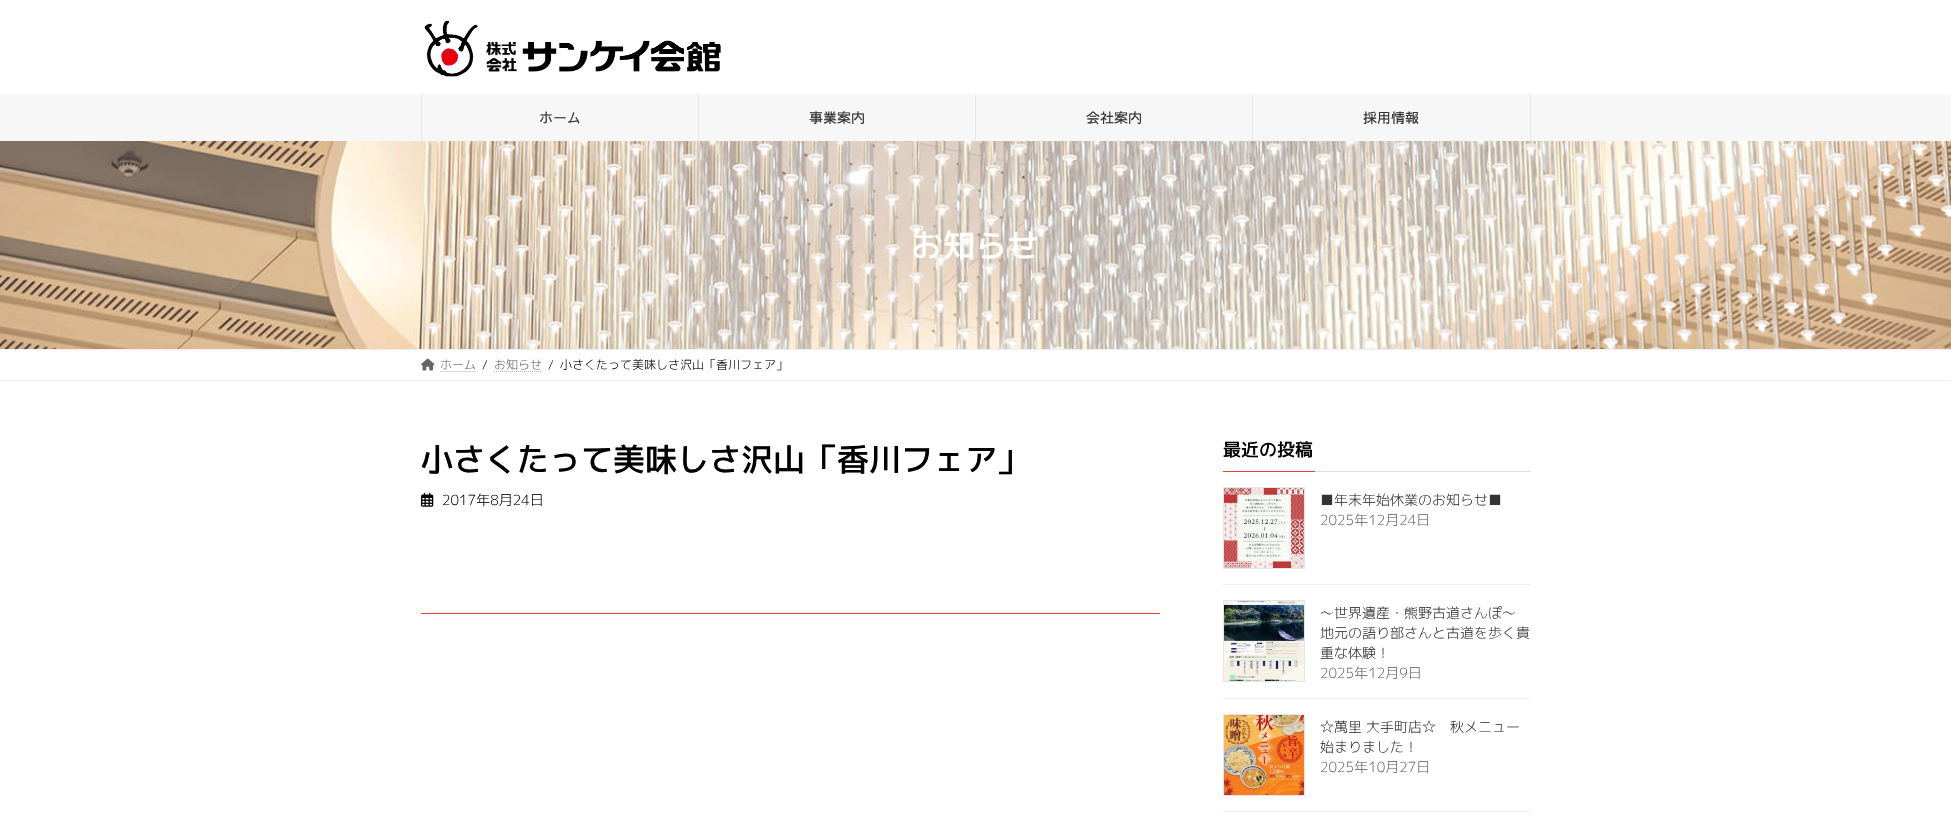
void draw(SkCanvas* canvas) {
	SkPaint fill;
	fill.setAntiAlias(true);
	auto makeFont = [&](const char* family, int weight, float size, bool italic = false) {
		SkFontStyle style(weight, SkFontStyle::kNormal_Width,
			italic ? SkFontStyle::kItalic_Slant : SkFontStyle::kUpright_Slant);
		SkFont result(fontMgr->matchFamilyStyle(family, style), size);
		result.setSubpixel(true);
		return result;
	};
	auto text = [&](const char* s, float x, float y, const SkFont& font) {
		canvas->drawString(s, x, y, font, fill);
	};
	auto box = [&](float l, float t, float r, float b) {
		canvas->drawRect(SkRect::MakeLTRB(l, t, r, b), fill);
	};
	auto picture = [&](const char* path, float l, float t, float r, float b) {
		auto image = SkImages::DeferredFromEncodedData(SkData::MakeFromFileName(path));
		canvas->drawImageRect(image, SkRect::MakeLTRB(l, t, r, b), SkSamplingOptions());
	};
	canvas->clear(0xFFFFFFFF);
	picture("image0.png", 424, 20, 721, 77);
	fill.setColor(0xFFF7F7F7);
	box(0, 94, 1951, 141);
	fill.setColor(0xFFE8E8E8);
	box(698, 94, 699, 141);
	box(421, 94, 422, 141);
	box(975, 94, 976, 141);
	box(1252, 94, 1253, 141);
	box(1530, 94, 1531, 141);
	picture("image1.png", 0, 141, 1951, 349);
	fill.setColor(0xFFF0F0F0);
	box(0, 349, 1951, 350);
	box(0, 380, 1951, 381);
	picture("image2.png", 421, 358, 435, 371);
	fill.setStyle(SkPaint::kStroke_Style);
	fill.setStrokeWidth(1);
	fill.setColor(0xFFB3B3B3);
	fill.setPathEffect(SkDashPathEffect::Make({{1, 1}}, 0));
	canvas->drawPath(SkPathBuilder().moveTo(440.5f, 371.5f).lineTo(476.5f, 371.5f).detach(), fill);
	fill.setPathEffect(nullptr);
	fill.setPathEffect(SkDashPathEffect::Make({{1, 1}}, 0));
	canvas->drawPath(SkPathBuilder().moveTo(494, 371.5f).lineTo(542, 371.5f).detach(), fill);
	fill.setPathEffect(nullptr);
	picture("image3.png", 421, 492, 434, 507);
	fill.setStyle(SkPaint::kFill_Style);
	fill.setColor(0xFFE34334);
	box(421, 613, 1160, 614);
	fill.setColor(0xFFE0E0E0);
	box(1315, 471, 1531, 472);
	fill.setColor(0xFFE34334);
	box(1223, 471, 1315, 472);
	fill.setColor(0xFFF0F0F0);
	box(1223, 584, 1531, 585);
	fill.setStyle(SkPaint::kStroke_Style);
	fill.setColor(0xFFE5E5E5);
	canvas->drawRect(SkRect::MakeLTRB(1223.5f, 487.5f, 1304.5f, 568.5f), fill);
	picture("image4.png", 1224, 488, 1304, 568);
	fill.setStyle(SkPaint::kFill_Style);
	fill.setColor(0xFFF0F0F0);
	box(1223, 698, 1531, 699);
	fill.setStyle(SkPaint::kStroke_Style);
	fill.setColor(0xFFE5E5E5);
	canvas->drawRect(SkRect::MakeLTRB(1223.5f, 600.5f, 1304.5f, 681.5f), fill);
	picture("image5.png", 1224, 601, 1304, 681);
	fill.setStyle(SkPaint::kFill_Style);
	fill.setColor(0xFFF0F0F0);
	box(1223, 811, 1531, 812);
	fill.setStyle(SkPaint::kStroke_Style);
	fill.setColor(0xFFE5E5E5);
	canvas->drawRect(SkRect::MakeLTRB(1223.5f, 714.5f, 1304.5f, 795.5f), fill);
	picture("image6.png", 1224, 715, 1304, 795);
	auto font1 = makeFont("Sawarabi Gothic", 400, 14);
	fill.setStyle(SkPaint::kFill_Style);
	fill.setColor(0xFF333333);
	text("ホーム", 539, 123, font1);
	text("事業案内", 809, 123, font1);
	text("会社案内", 1086, 123, font1);
	text("採用情報", 1363, 123, font1);
	auto font2 = makeFont("M PLUS 1p", 500, 32);
	fill.setColor(0xFFFFFFFF);
	text("お知らせ", 911, 257, font2);
	auto font3 = makeFont("M PLUS 1p", 300, 12);
	fill.setColor(0xFF666666);
	text("ホーム", 440, 369, font3);
	fill.setColor(0xFF000000);
	text("/", 482, 369, font3);
	fill.setColor(0xFF666666);
	text("お知らせ", 494, 369, font3);
	fill.setColor(0xFF000000);
	text("/", 548, 369, font3);
	text("小さくたって美味しさ沢山「香川フェア」", 560, 369, font3);
	text("小さくたって美味しさ沢山「香川フェア」", 421, 471, font2);
	auto font4 = makeFont("M PLUS 1p", 300, 14);
	text("2017年8月24日", 442, 505, font4);
	auto font5 = makeFont("M PLUS 1p", 500, 18);
	text("最近の投稿", 1223, 456, font5);
	fill.setColor(0xFF333333);
	text("■年末年始休業のお知らせ■", 1320, 505, font4);
	fill.setColor(0xFF666666);
	text("2025年12月24日", 1320, 525, font4);
	fill.setColor(0xFF333333);
	text("～世界遺産・熊野古道さんぽ～", 1320, 618, font4);
	text("地元の語り部さんと古道を歩く貴", 1320, 638, font4);
	text("重な体験！", 1320, 658, font4);
	fill.setColor(0xFF666666);
	text("2025年12月9日", 1320, 678, font4);
	fill.setColor(0xFF333333);
	text("☆萬里 大手町店☆　秋メニュー", 1320, 732, font4);
	text("始まりました！", 1320, 752, font4);
	fill.setColor(0xFF666666);
	text("2025年10月27日", 1320, 772, font4);
}
